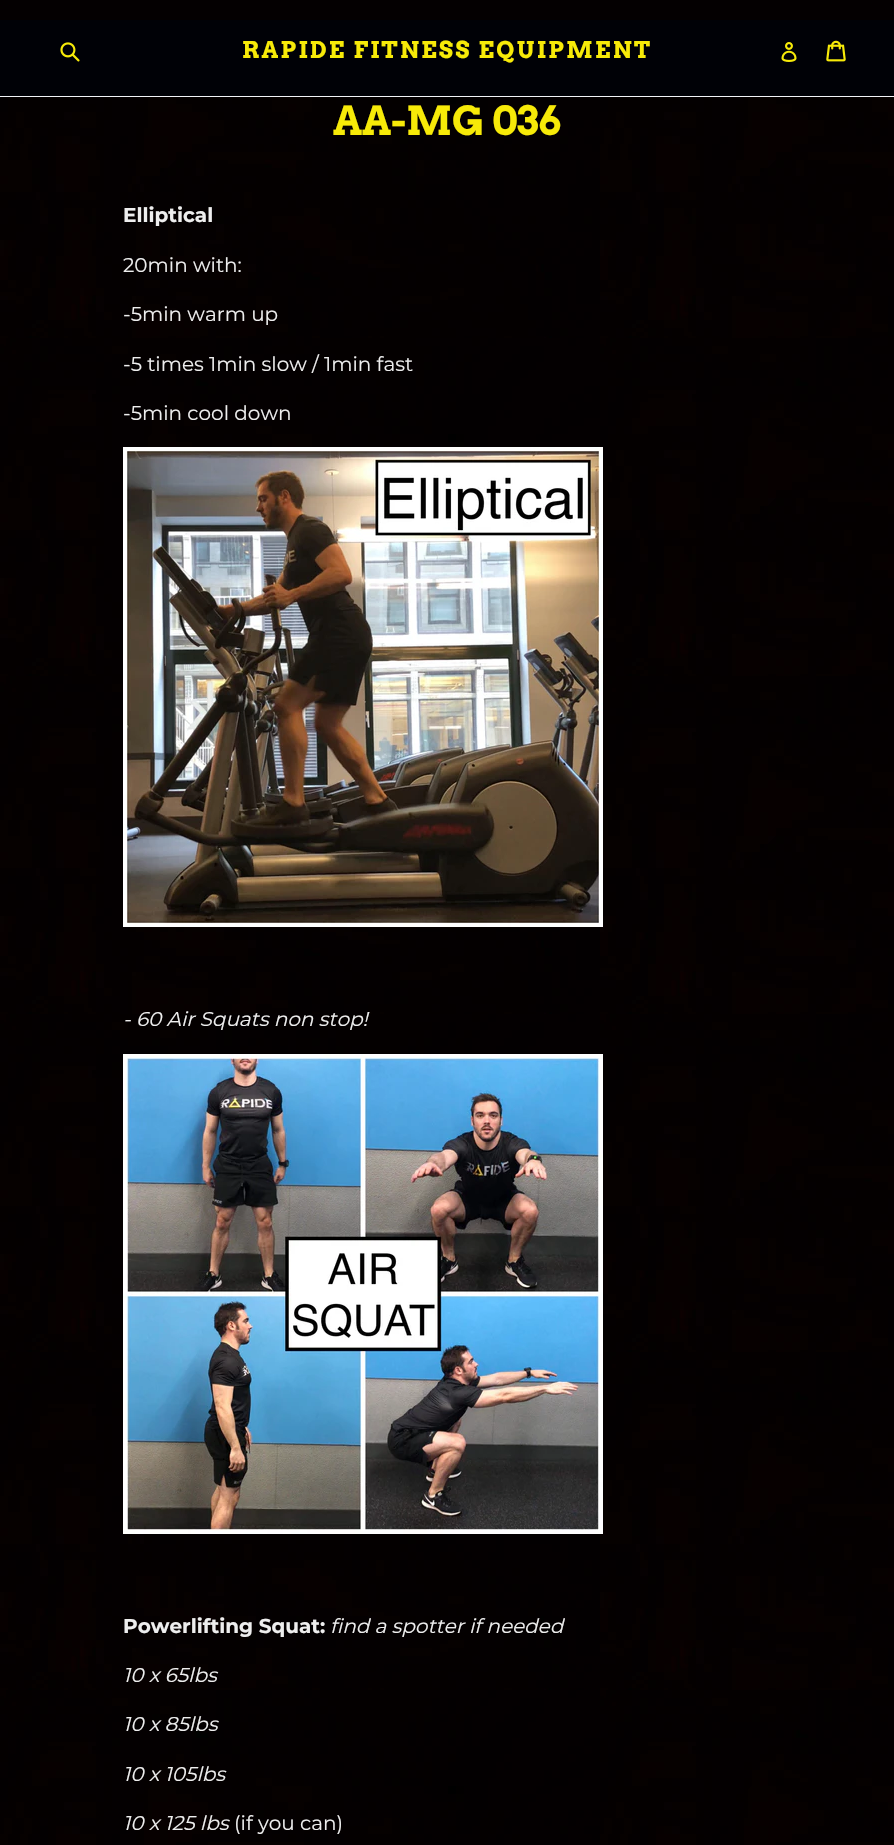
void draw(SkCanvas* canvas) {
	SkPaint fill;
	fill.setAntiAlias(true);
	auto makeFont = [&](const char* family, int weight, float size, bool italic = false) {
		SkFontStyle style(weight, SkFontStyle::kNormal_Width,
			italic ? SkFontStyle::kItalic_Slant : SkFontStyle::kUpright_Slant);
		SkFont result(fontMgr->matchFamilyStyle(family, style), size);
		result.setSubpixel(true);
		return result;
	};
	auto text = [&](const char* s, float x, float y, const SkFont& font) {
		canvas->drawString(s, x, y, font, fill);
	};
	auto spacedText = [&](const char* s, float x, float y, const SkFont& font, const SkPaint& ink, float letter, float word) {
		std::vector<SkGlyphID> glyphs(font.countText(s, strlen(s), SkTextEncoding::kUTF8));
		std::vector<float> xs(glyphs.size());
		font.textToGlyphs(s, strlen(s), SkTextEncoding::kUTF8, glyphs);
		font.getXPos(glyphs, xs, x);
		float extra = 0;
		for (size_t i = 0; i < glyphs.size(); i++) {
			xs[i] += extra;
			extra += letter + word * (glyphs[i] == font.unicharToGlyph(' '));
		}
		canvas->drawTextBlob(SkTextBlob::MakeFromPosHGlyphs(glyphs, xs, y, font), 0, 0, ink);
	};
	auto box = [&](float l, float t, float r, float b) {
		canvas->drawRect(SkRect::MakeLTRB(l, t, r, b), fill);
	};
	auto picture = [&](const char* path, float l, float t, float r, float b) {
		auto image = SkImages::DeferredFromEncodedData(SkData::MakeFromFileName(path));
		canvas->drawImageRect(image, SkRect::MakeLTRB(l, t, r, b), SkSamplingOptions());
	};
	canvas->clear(0xFFFFFFFF);
	picture("image0.png", 0, 97, 894, 1845);
	fill.setColor(0xFF000106);
	box(0, 20, 894, 96);
	fill.setColor(0xFF040001);
	box(0, 0, 894, 20);
	picture("image1.png", 60, 42, 80, 62);
	picture("image2.png", 781, 42, 797, 62);
	picture("image3.png", 826, 40, 846, 62);
	fill.setColor(0xFFF1F3F7);
	box(0, 96, 894, 97);
	picture("image4.png", 123, 447, 603, 927);
	picture("image5.png", 123, 1054, 603, 1534);
	auto font1 = makeFont("Arvo", 700, 23);
	fill.setColor(0xFFF7EA08);
	spacedText("RAPIDE FITNESS EQUIPMENT", 242, 58, font1, fill, 2.3f, 0);
	auto font2 = makeFont("Arvo", 700, 40);
	text("AA-MG 036", 333, 135, font2);
	auto font3 = makeFont("Montserrat", 700, 20);
	fill.setColor(0xFFEEEEEE);
	text("Elliptical", 123, 222, font3);
	auto font4 = makeFont("Montserrat", 400, 20);
	text("20min with:", 123, 272, font4);
	text("-5min warm up", 123, 321, font4);
	text("-5 times 1min slow / 1min fast", 123, 371, font4);
	text("-5min cool down", 123, 420, font4);
	auto font5 = makeFont("Montserrat", 400, 20, true);
	text("- 60 Air Squats non stop!", 123, 1026, font5);
	text("Powerlifting Squat:", 123, 1633, font3);
	text("find a spotter if needed", 330, 1633, font5);
	text("10 x 65lbs", 123, 1682, font5);
	text("10 x 85lbs", 123, 1731, font5);
	text("10 x 105lbs", 123, 1781, font5);
	text("10 x 125 lbs", 123, 1830, font5);
	text("(if you can)", 234, 1830, font4);
}
